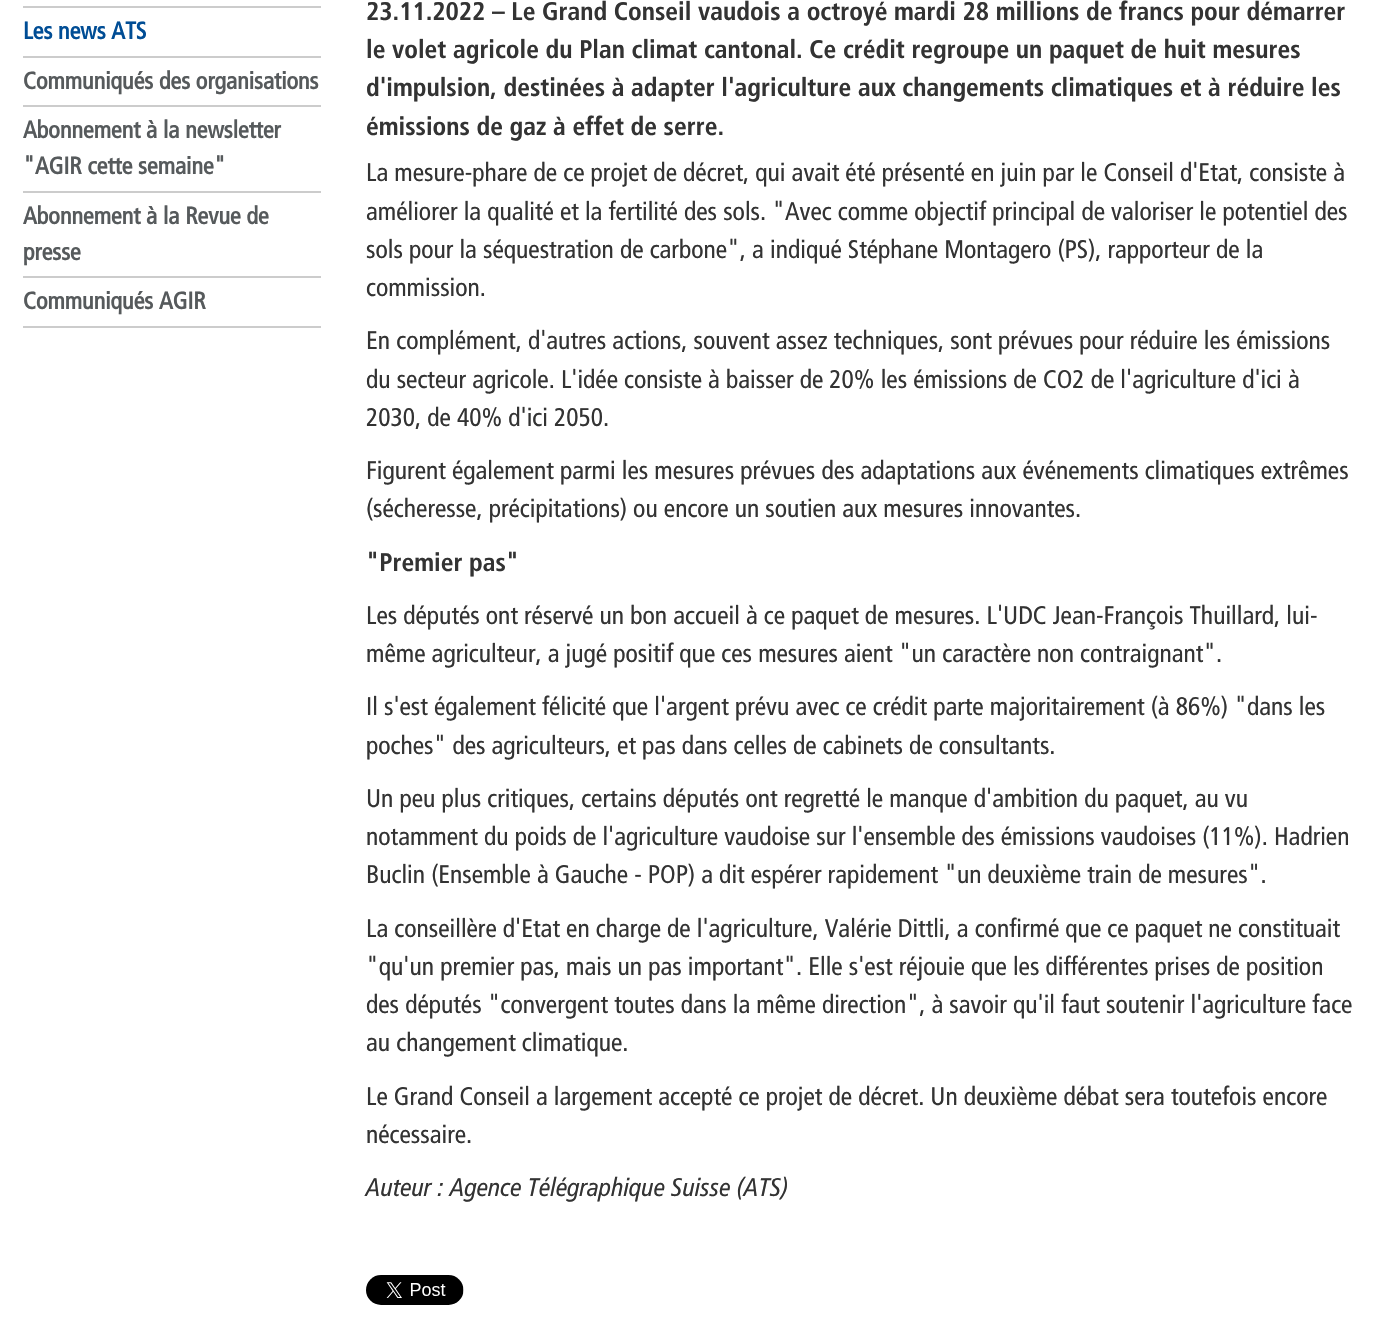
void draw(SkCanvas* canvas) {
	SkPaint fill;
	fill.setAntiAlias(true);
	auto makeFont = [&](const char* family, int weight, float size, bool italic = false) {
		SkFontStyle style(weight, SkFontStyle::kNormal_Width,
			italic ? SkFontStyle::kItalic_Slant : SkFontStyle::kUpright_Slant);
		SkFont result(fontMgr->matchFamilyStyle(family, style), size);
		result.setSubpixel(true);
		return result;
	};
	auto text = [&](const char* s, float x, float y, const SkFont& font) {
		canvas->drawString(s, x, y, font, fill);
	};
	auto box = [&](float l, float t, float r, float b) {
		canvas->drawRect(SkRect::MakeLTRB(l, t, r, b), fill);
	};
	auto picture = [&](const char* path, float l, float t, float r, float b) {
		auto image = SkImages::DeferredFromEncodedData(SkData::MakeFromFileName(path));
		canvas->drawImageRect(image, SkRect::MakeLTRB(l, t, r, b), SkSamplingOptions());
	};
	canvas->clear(0xFFFFFFFF);
	fill.setColor(0xFFCCCCCC);
	box(23, 6, 321, 8);
	box(23, 56, 321, 58);
	box(23, 105, 321, 107);
	box(23, 191, 321, 193);
	box(23, 276, 321, 278);
	box(23, 326, 321, 328);
	picture("image0.png", 366, 1275, 464, 1305);
	auto font1 = makeFont("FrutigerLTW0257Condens", 700, 24);
	fill.setColor(0xFF004D95);
	text("Les news ATS", 23, 39, font1);
	fill.setColor(0xFF565A5C);
	text("Communiqués des organisations", 23, 89, font1);
	text("Abonnement à la newsletter", 23, 138, font1);
	text("\"AGIR cette semaine\"", 23, 174, font1);
	text("Abonnement à la Revue de", 23, 224, font1);
	text("presse", 23, 260, font1);
	text("Communiqués AGIR", 23, 309, font1);
	auto font2 = makeFont("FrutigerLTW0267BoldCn", 700, 25.5f);
	fill.setColor(0xFF333333);
	text("23.11.2022 – Le Grand Conseil vaudois a octroyé mardi 28 millions de francs pour démarrer", 366, 20, font2);
	text("le volet agricole du Plan climat cantonal. Ce crédit regroupe un paquet de huit mesures", 366, 58, font2);
	text("d'impulsion, destinées à adapter l'agriculture aux changements climatiques et à réduire les", 366, 96, font2);
	text("émissions de gaz à effet de serre.", 366, 135, font2);
	auto font3 = makeFont("FrutigerLTW0257Condens", 400, 25.5f);
	text("La mesure-phare de ce projet de décret, qui avait été présenté en juin par le Conseil d'Etat, consiste à", 366, 181, font3);
	text("améliorer la qualité et la fertilité des sols. \"Avec comme objectif principal de valoriser le potentiel des", 366, 220, font3);
	text("sols pour la séquestration de carbone\", a indiqué Stéphane Montagero (PS), rapporteur de la", 366, 258, font3);
	text("commission.", 366, 296, font3);
	text("En complément, d'autres actions, souvent assez techniques, sont prévues pour réduire les émissions", 366, 349, font3);
	text("du secteur agricole. L'idée consiste à baisser de 20% les émissions de CO2 de l'agriculture d'ici à", 366, 388, font3);
	text("2030, de 40% d'ici 2050.", 366, 426, font3);
	text("Figurent également parmi les mesures prévues des adaptations aux événements climatiques extrêmes", 366, 479, font3);
	text("(sécheresse, précipitations) ou encore un soutien aux mesures innovantes.", 366, 517, font3);
	text("\"Premier pas\"", 366, 571, font2);
	text("Les députés ont réservé un bon accueil à ce paquet de mesures. L'UDC Jean-François Thuillard, lui-", 366, 624, font3);
	text("même agriculteur, a jugé positif que ces mesures aient \"un caractère non contraignant\".", 366, 662, font3);
	text("Il s'est également félicité que l'argent prévu avec ce crédit parte majoritairement (à 86%) \"dans les", 366, 715, font3);
	text("poches\" des agriculteurs, et pas dans celles de cabinets de consultants.", 366, 754, font3);
	text("Un peu plus critiques, certains députés ont regretté le manque d'ambition du paquet, au vu", 366, 807, font3);
	text("notamment du poids de l'agriculture vaudoise sur l'ensemble des émissions vaudoises (11%). Hadrien", 366, 845, font3);
	text("Buclin (Ensemble à Gauche - POP) a dit espérer rapidement \"un deuxième train de mesures\".", 366, 883, font3);
	text("La conseillère d'Etat en charge de l'agriculture, Valérie Dittli, a confirmé que ce paquet ne constituait", 366, 937, font3);
	text("\"qu'un premier pas, mais un pas important\". Elle s'est réjouie que les différentes prises de position", 366, 975, font3);
	text("des députés \"convergent toutes dans la même direction\", à savoir qu'il faut soutenir l'agriculture face", 366, 1013, font3);
	text("au changement climatique.", 366, 1051, font3);
	text("Le Grand Conseil a largement accepté ce projet de décret. Un deuxième débat sera toutefois encore", 366, 1105, font3);
	text("nécessaire.", 366, 1143, font3);
	auto font4 = makeFont("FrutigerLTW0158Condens", 400, 25.5f);
	text("Auteur : Agence Télégraphique Suisse (ATS)", 366, 1196, font4);
}
